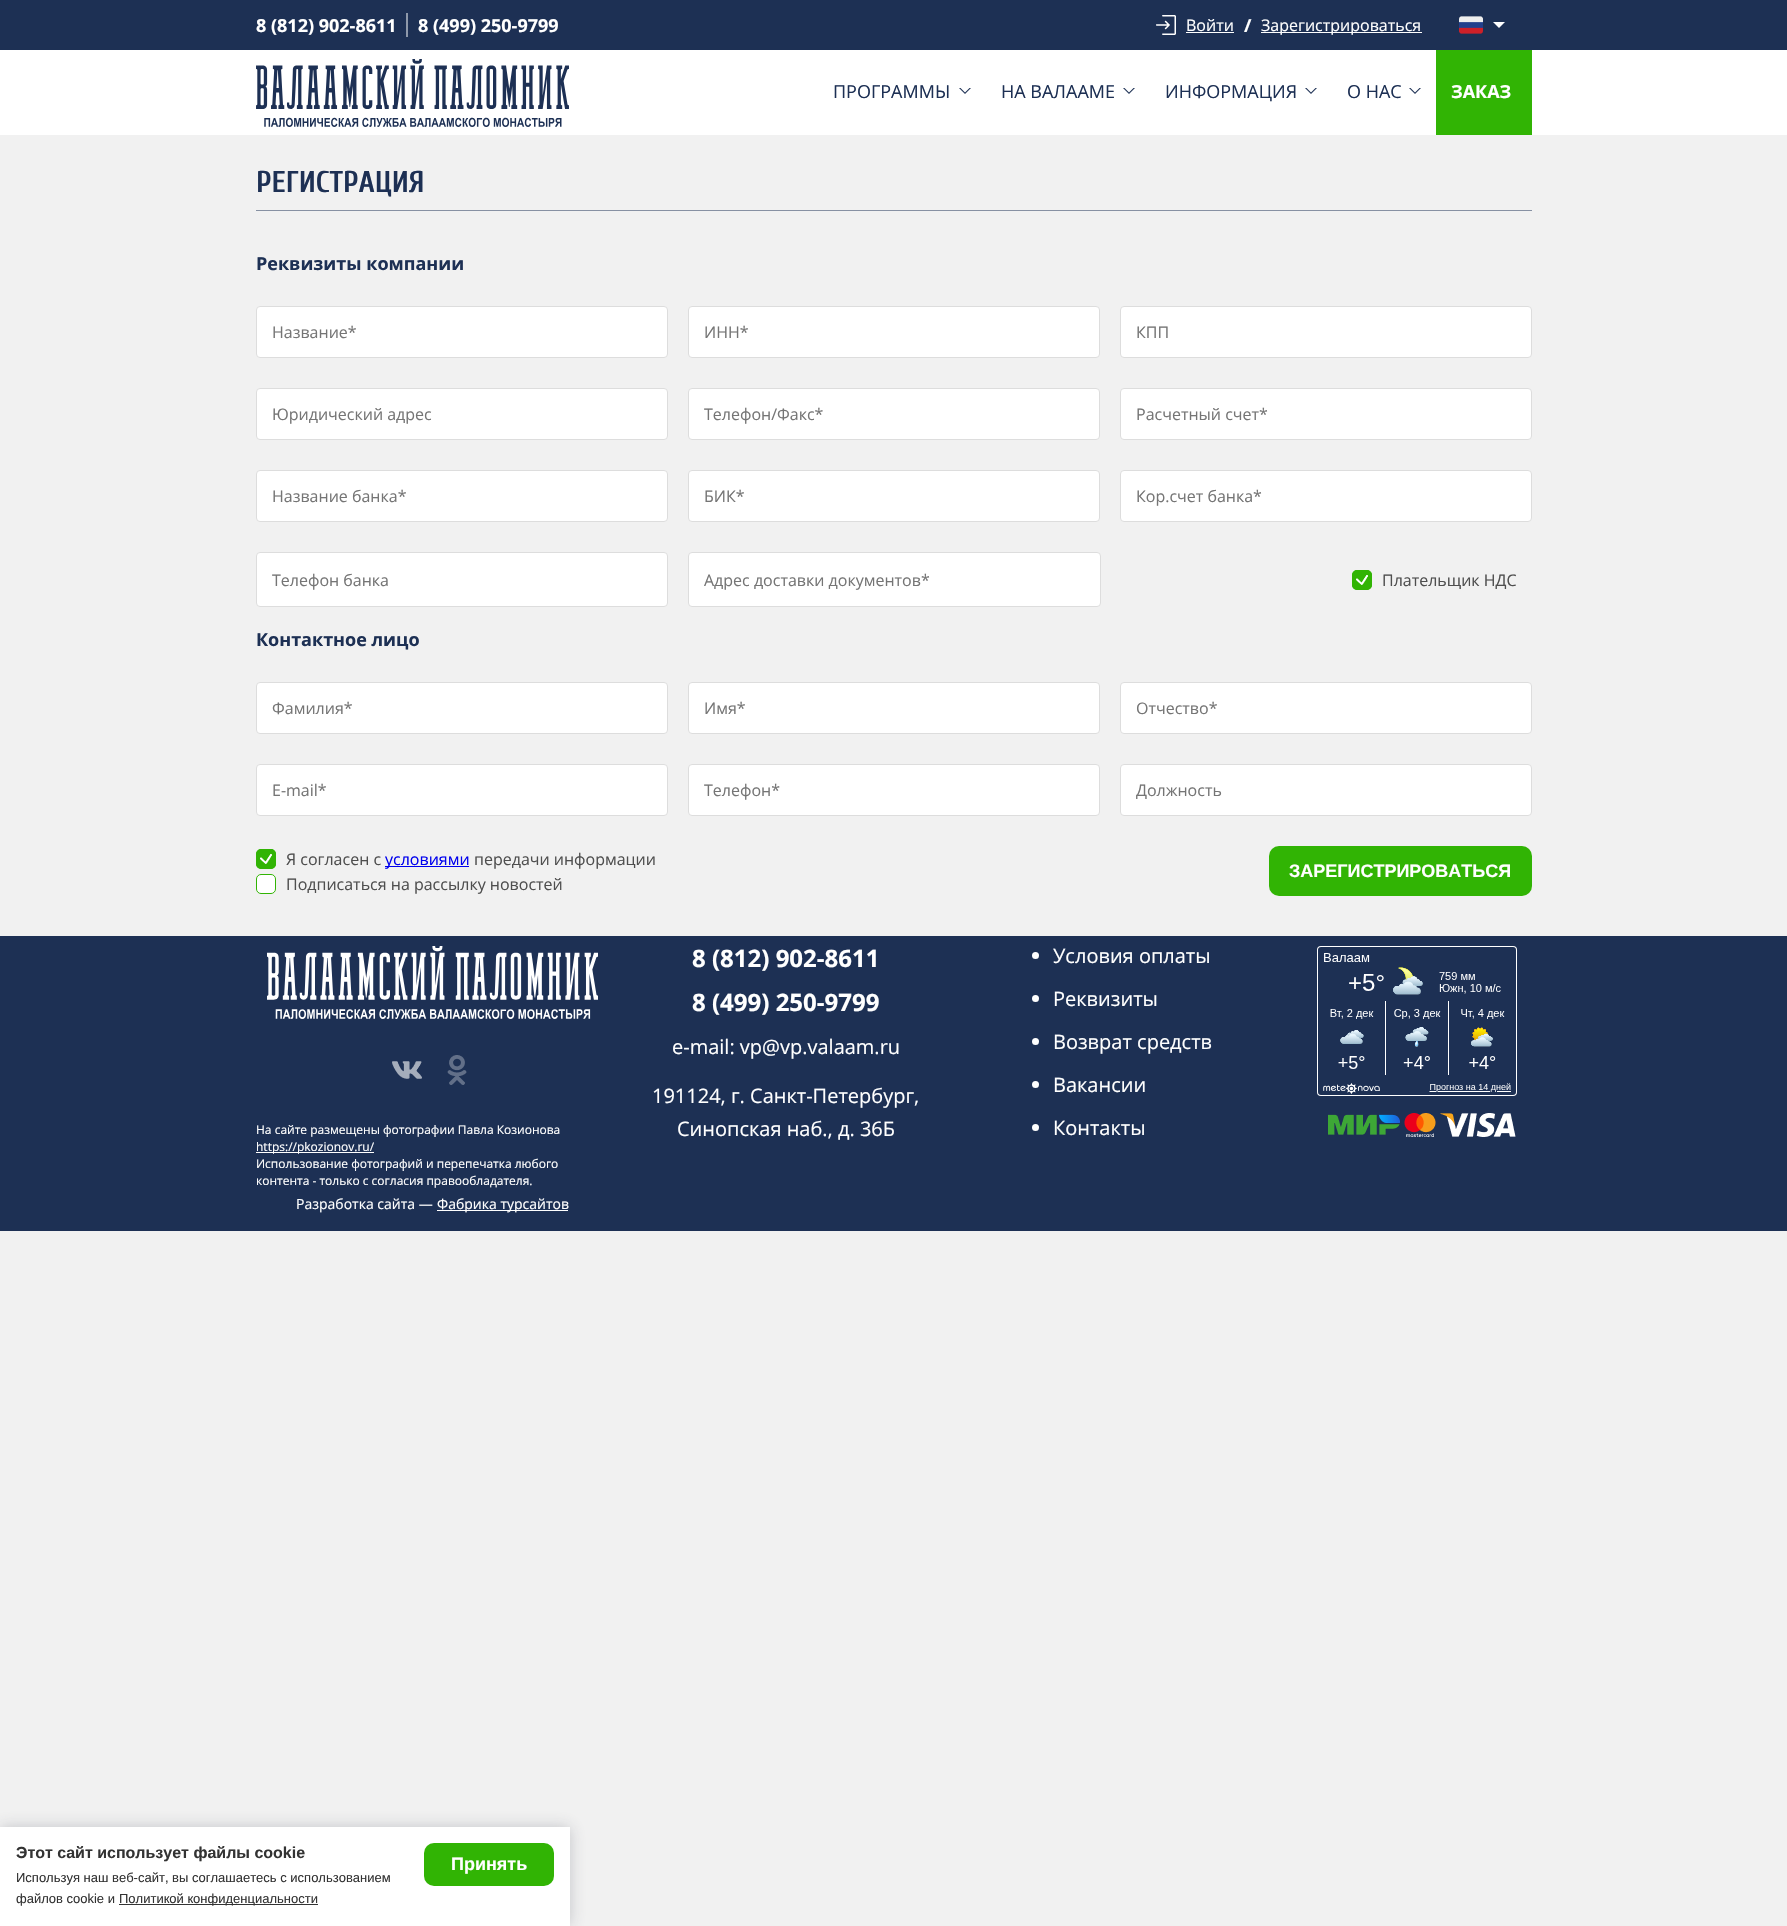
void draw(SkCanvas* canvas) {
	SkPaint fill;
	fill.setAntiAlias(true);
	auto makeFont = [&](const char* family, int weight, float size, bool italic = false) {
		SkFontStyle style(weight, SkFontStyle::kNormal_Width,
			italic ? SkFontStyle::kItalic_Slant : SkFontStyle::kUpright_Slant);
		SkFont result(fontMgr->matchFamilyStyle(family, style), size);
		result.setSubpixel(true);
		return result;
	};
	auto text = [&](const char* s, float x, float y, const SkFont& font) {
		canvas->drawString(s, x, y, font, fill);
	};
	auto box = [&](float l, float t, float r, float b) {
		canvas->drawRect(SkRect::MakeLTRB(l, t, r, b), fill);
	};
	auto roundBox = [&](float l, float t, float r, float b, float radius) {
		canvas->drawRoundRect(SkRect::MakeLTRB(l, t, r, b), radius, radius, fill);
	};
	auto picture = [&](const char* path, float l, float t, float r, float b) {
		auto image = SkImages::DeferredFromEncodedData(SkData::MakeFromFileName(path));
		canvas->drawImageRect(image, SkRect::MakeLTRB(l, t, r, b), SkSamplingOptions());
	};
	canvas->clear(0xFFF1F1F1);
	fill.setColor(0xFF1D3054);
	box(0, 0, 1787, 50);
	fill.setColor(0xFF8E98AA);
	box(406, 13, 408, 37);
	picture("image0.png", 1156, 15, 1176, 35);
	fill.setColor(0xFFFFFFFF);
	box(1186, 32, 1234, 33);
	box(1261, 32, 1422, 33);
	picture("image1.png", 1459, 16, 1483, 34);
	picture("image2.png", 1493, 22, 1505, 28);
	box(0, 50, 1787, 135);
	picture("image3.png", 256, 59, 569, 127);
	picture("image4.png", 959, 88, 971, 94);
	picture("image4.png", 1123, 88, 1135, 94);
	picture("image4.png", 1305, 88, 1317, 94);
	picture("image4.png", 1409, 88, 1421, 94);
	fill.setColor(0xFF31B404);
	box(1436, 50, 1532, 135);
	fill.setColor(0xFF8791A3);
	box(256, 210, 1532, 211);
	fill.setColor(0xFFFFFFFF);
	canvas->drawRoundRect(SkRect::MakeLTRB(256.5f, 306.5f, 667.5f, 357.5f), 3.5f, 3.5f, fill);
	fill.setStyle(SkPaint::kStroke_Style);
	fill.setStrokeWidth(1);
	fill.setColor(0xFFDDDDDD);
	canvas->drawRoundRect(SkRect::MakeLTRB(256.5f, 306.5f, 667.5f, 357.5f), 3.5f, 3.5f, fill);
	fill.setStyle(SkPaint::kFill_Style);
	fill.setColor(0xFFFFFFFF);
	canvas->drawRoundRect(SkRect::MakeLTRB(688.5f, 306.5f, 1099.5f, 357.5f), 3.5f, 3.5f, fill);
	fill.setStyle(SkPaint::kStroke_Style);
	fill.setColor(0xFFDDDDDD);
	canvas->drawRoundRect(SkRect::MakeLTRB(688.5f, 306.5f, 1099.5f, 357.5f), 3.5f, 3.5f, fill);
	fill.setStyle(SkPaint::kFill_Style);
	fill.setColor(0xFFFFFFFF);
	canvas->drawRoundRect(SkRect::MakeLTRB(1120.5f, 306.5f, 1531.5f, 357.5f), 3.5f, 3.5f, fill);
	fill.setStyle(SkPaint::kStroke_Style);
	fill.setColor(0xFFDDDDDD);
	canvas->drawRoundRect(SkRect::MakeLTRB(1120.5f, 306.5f, 1531.5f, 357.5f), 3.5f, 3.5f, fill);
	fill.setStyle(SkPaint::kFill_Style);
	fill.setColor(0xFFFFFFFF);
	canvas->drawRoundRect(SkRect::MakeLTRB(256.5f, 388.5f, 667.5f, 439.5f), 3.5f, 3.5f, fill);
	fill.setStyle(SkPaint::kStroke_Style);
	fill.setColor(0xFFDDDDDD);
	canvas->drawRoundRect(SkRect::MakeLTRB(256.5f, 388.5f, 667.5f, 439.5f), 3.5f, 3.5f, fill);
	fill.setStyle(SkPaint::kFill_Style);
	fill.setColor(0xFFFFFFFF);
	canvas->drawRoundRect(SkRect::MakeLTRB(688.5f, 388.5f, 1099.5f, 439.5f), 3.5f, 3.5f, fill);
	fill.setStyle(SkPaint::kStroke_Style);
	fill.setColor(0xFFDDDDDD);
	canvas->drawRoundRect(SkRect::MakeLTRB(688.5f, 388.5f, 1099.5f, 439.5f), 3.5f, 3.5f, fill);
	fill.setStyle(SkPaint::kFill_Style);
	fill.setColor(0xFFFFFFFF);
	canvas->drawRoundRect(SkRect::MakeLTRB(1120.5f, 388.5f, 1531.5f, 439.5f), 3.5f, 3.5f, fill);
	fill.setStyle(SkPaint::kStroke_Style);
	fill.setColor(0xFFDDDDDD);
	canvas->drawRoundRect(SkRect::MakeLTRB(1120.5f, 388.5f, 1531.5f, 439.5f), 3.5f, 3.5f, fill);
	fill.setStyle(SkPaint::kFill_Style);
	fill.setColor(0xFFFFFFFF);
	canvas->drawRoundRect(SkRect::MakeLTRB(256.5f, 470.5f, 667.5f, 521.5f), 3.5f, 3.5f, fill);
	fill.setStyle(SkPaint::kStroke_Style);
	fill.setColor(0xFFDDDDDD);
	canvas->drawRoundRect(SkRect::MakeLTRB(256.5f, 470.5f, 667.5f, 521.5f), 3.5f, 3.5f, fill);
	fill.setStyle(SkPaint::kFill_Style);
	fill.setColor(0xFFFFFFFF);
	canvas->drawRoundRect(SkRect::MakeLTRB(688.5f, 470.5f, 1099.5f, 521.5f), 3.5f, 3.5f, fill);
	fill.setStyle(SkPaint::kStroke_Style);
	fill.setColor(0xFFDDDDDD);
	canvas->drawRoundRect(SkRect::MakeLTRB(688.5f, 470.5f, 1099.5f, 521.5f), 3.5f, 3.5f, fill);
	fill.setStyle(SkPaint::kFill_Style);
	fill.setColor(0xFFFFFFFF);
	canvas->drawRoundRect(SkRect::MakeLTRB(1120.5f, 470.5f, 1531.5f, 521.5f), 3.5f, 3.5f, fill);
	fill.setStyle(SkPaint::kStroke_Style);
	fill.setColor(0xFFDDDDDD);
	canvas->drawRoundRect(SkRect::MakeLTRB(1120.5f, 470.5f, 1531.5f, 521.5f), 3.5f, 3.5f, fill);
	fill.setStyle(SkPaint::kFill_Style);
	fill.setColor(0xFFFFFFFF);
	canvas->drawRoundRect(SkRect::MakeLTRB(256.5f, 552.5f, 667.5f, 606.5f), 3.5f, 3.5f, fill);
	fill.setStyle(SkPaint::kStroke_Style);
	fill.setColor(0xFFDDDDDD);
	canvas->drawRoundRect(SkRect::MakeLTRB(256.5f, 552.5f, 667.5f, 606.5f), 3.5f, 3.5f, fill);
	fill.setStyle(SkPaint::kFill_Style);
	fill.setColor(0xFFFFFFFF);
	canvas->drawRoundRect(SkRect::MakeLTRB(688.5f, 552.5f, 1100.5f, 606.5f), 3.5f, 3.5f, fill);
	fill.setStyle(SkPaint::kStroke_Style);
	fill.setColor(0xFFDDDDDD);
	canvas->drawRoundRect(SkRect::MakeLTRB(688.5f, 552.5f, 1100.5f, 606.5f), 3.5f, 3.5f, fill);
	fill.setStyle(SkPaint::kFill_Style);
	fill.setColor(0xFF31B404);
	roundBox(1352, 570, 1372, 590, 5);
	picture("image5.png", 1356, 575, 1368, 585);
	fill.setStyle(SkPaint::kStroke_Style);
	canvas->drawRoundRect(SkRect::MakeLTRB(1352.5f, 570.5f, 1371.5f, 589.5f), 4.5f, 4.5f, fill);
	fill.setStyle(SkPaint::kFill_Style);
	fill.setColor(0xFFFFFFFF);
	canvas->drawRoundRect(SkRect::MakeLTRB(256.5f, 682.5f, 667.5f, 733.5f), 3.5f, 3.5f, fill);
	fill.setStyle(SkPaint::kStroke_Style);
	fill.setColor(0xFFDDDDDD);
	canvas->drawRoundRect(SkRect::MakeLTRB(256.5f, 682.5f, 667.5f, 733.5f), 3.5f, 3.5f, fill);
	fill.setStyle(SkPaint::kFill_Style);
	fill.setColor(0xFFFFFFFF);
	canvas->drawRoundRect(SkRect::MakeLTRB(688.5f, 682.5f, 1099.5f, 733.5f), 3.5f, 3.5f, fill);
	fill.setStyle(SkPaint::kStroke_Style);
	fill.setColor(0xFFDDDDDD);
	canvas->drawRoundRect(SkRect::MakeLTRB(688.5f, 682.5f, 1099.5f, 733.5f), 3.5f, 3.5f, fill);
	fill.setStyle(SkPaint::kFill_Style);
	fill.setColor(0xFFFFFFFF);
	canvas->drawRoundRect(SkRect::MakeLTRB(1120.5f, 682.5f, 1531.5f, 733.5f), 3.5f, 3.5f, fill);
	fill.setStyle(SkPaint::kStroke_Style);
	fill.setColor(0xFFDDDDDD);
	canvas->drawRoundRect(SkRect::MakeLTRB(1120.5f, 682.5f, 1531.5f, 733.5f), 3.5f, 3.5f, fill);
	fill.setStyle(SkPaint::kFill_Style);
	fill.setColor(0xFFFFFFFF);
	canvas->drawRoundRect(SkRect::MakeLTRB(256.5f, 764.5f, 667.5f, 815.5f), 3.5f, 3.5f, fill);
	fill.setStyle(SkPaint::kStroke_Style);
	fill.setColor(0xFFDDDDDD);
	canvas->drawRoundRect(SkRect::MakeLTRB(256.5f, 764.5f, 667.5f, 815.5f), 3.5f, 3.5f, fill);
	fill.setStyle(SkPaint::kFill_Style);
	fill.setColor(0xFFFFFFFF);
	canvas->drawRoundRect(SkRect::MakeLTRB(688.5f, 764.5f, 1099.5f, 815.5f), 3.5f, 3.5f, fill);
	fill.setStyle(SkPaint::kStroke_Style);
	fill.setColor(0xFFDDDDDD);
	canvas->drawRoundRect(SkRect::MakeLTRB(688.5f, 764.5f, 1099.5f, 815.5f), 3.5f, 3.5f, fill);
	fill.setStyle(SkPaint::kFill_Style);
	fill.setColor(0xFFFFFFFF);
	canvas->drawRoundRect(SkRect::MakeLTRB(1120.5f, 764.5f, 1531.5f, 815.5f), 3.5f, 3.5f, fill);
	fill.setStyle(SkPaint::kStroke_Style);
	fill.setColor(0xFFDDDDDD);
	canvas->drawRoundRect(SkRect::MakeLTRB(1120.5f, 764.5f, 1531.5f, 815.5f), 3.5f, 3.5f, fill);
	fill.setStyle(SkPaint::kFill_Style);
	fill.setColor(0xFF31B404);
	roundBox(256, 849, 276, 869, 5);
	picture("image5.png", 260, 854, 272, 864);
	fill.setStyle(SkPaint::kStroke_Style);
	canvas->drawRoundRect(SkRect::MakeLTRB(256.5f, 849.5f, 275.5f, 868.5f), 4.5f, 4.5f, fill);
	fill.setStyle(SkPaint::kFill_Style);
	fill.setColor(0xFF0000EE);
	box(385, 866, 469, 867);
	fill.setColor(0xFFFFFFFF);
	canvas->drawRoundRect(SkRect::MakeLTRB(256.5f, 874.5f, 275.5f, 893.5f), 4.5f, 4.5f, fill);
	fill.setStyle(SkPaint::kStroke_Style);
	fill.setColor(0xFF31B404);
	canvas->drawRoundRect(SkRect::MakeLTRB(256.5f, 874.5f, 275.5f, 893.5f), 4.5f, 4.5f, fill);
	fill.setStyle(SkPaint::kFill_Style);
	roundBox(1269, 846, 1532, 896, 10);
	fill.setColor(0xFF1D3054);
	box(0, 936, 1787, 1231);
	fill.setColor(0xFFFFFFFF);
	canvas->drawCircle(1035.5f, 955.5f, 3.5f, fill);
	canvas->drawCircle(1035.5f, 998.5f, 3.5f, fill);
	canvas->drawCircle(1035.5f, 1041.5f, 3.5f, fill);
	canvas->drawCircle(1035.5f, 1084.5f, 3.5f, fill);
	canvas->drawCircle(1035.5f, 1127.5f, 3.5f, fill);
	picture("image6.png", 1317, 946, 1517, 1096);
	picture("image7.png", 1328, 1114, 1400, 1135);
	picture("image8.png", 1404, 1113, 1436, 1137);
	picture("image9.png", 1440, 1113, 1516, 1137);
	picture("image10.png", 267, 946, 598, 1019);
	picture("image11.png", 392, 1061, 422, 1079);
	picture("image12.png", 447, 1055, 467, 1085);
	box(256, 1152, 374, 1153);
	box(437, 1210, 568, 1211);
	fill.setColor(0x40363D4D);
	fill.setMaskFilter(SkMaskFilter::MakeBlur(kNormal_SkBlurStyle, 7.5f));
	canvas->drawRect(SkRect::MakeLTRB(0, 1827, 570, 1926), fill);
	fill.setMaskFilter(nullptr);
	fill.setColor(0xFFFFFFFF);
	box(0, 1827, 570, 1926);
	fill.setColor(0xFF333333);
	box(119, 1904, 318, 1905);
	fill.setColor(0xFF31B404);
	roundBox(424, 1843, 554, 1886, 10);
	auto font1 = makeFont("Open Sans", 700, 18);
	fill.setColor(0xFFFFFFFF);
	text("8 (812) 902-8611", 256, 32, font1);
	text("8 (499) 250-9799", 418, 32, font1);
	auto font2 = makeFont("Open Sans", 400, 16);
	text("Войти", 1186, 31, font2);
	text("/", 1244, 32, font1);
	text("Зарегистрироваться", 1261, 31, font2);
	auto font3 = makeFont("Open Sans", 400, 18);
	fill.setColor(0xFF1D3054);
	text("ПРОГРАММЫ", 833, 98, font3);
	text("НА ВАЛААМЕ", 1001, 98, font3);
	text("ИНФОРМАЦИЯ", 1165, 98, font3);
	text("О НАС", 1347, 98, font3);
	fill.setColor(0xFFFFFFFF);
	text("ЗАКАЗ", 1451, 98, font1);
	auto font4 = makeFont("Cuprum", 700, 30);
	fill.setColor(0xFF1D3054);
	text("РЕГИСТРАЦИЯ", 256, 192, font4);
	text("Реквизиты компании", 256, 270, font1);
	fill.setColor(0xFF757575);
	text("Название*", 272, 338, font2);
	text("ИНН*", 704, 338, font2);
	text("КПП", 1136, 338, font2);
	text("Юридический адрес", 272, 420, font2);
	text("Телефон/Факс*", 704, 420, font2);
	text("Расчетный счет*", 1136, 420, font2);
	text("Название банка*", 272, 502, font2);
	text("БИК*", 704, 502, font2);
	text("Кор.счет банка*", 1136, 502, font2);
	text("Телефон банка", 272, 586, font2);
	text("Адрес доставки документов*", 704, 586, font2);
	fill.setColor(0xFF4F4F4F);
	text("Плательщик НДС", 1382, 586, font2);
	fill.setColor(0xFF1D3054);
	text("Контактное лицо", 256, 646, font1);
	fill.setColor(0xFF757575);
	text("Фамилия*", 272, 714, font2);
	text("Имя*", 704, 714, font2);
	text("Отчество*", 1136, 714, font2);
	text("E-mail*", 272, 796, font2);
	text("Телефон*", 704, 796, font2);
	canvas->save();
	canvas->clipRect(SkRect::MakeLTRB(1136, 779, 1516, 801));
	text("Должность", 1136, 796, font2);
	canvas->restore();
	fill.setColor(0xFF4F4F4F);
	text("Я согласен с", 286, 865, font2);
	fill.setColor(0xFF0000EE);
	text("условиями", 385, 865, font2);
	fill.setColor(0xFF4F4F4F);
	text("передачи информации", 474, 865, font2);
	text("Подписаться на рассылку новостей", 286, 890, font2);
	auto font5 = makeFont("Liberation Sans", 700, 18);
	fill.setColor(0xFFFFFFFF);
	text("ЗАРЕГИСТРИРОВАТЬСЯ", 1289, 877, font5);
	auto font6 = makeFont("Open Sans", 700, 24);
	text("8 (812) 902-8611", 692, 967, font6);
	text("8 (499) 250-9799", 692, 1011, font6);
	auto font7 = makeFont("Open Sans", 400, 20);
	text("e-mail: vp@vp.valaam.ru", 672, 1054, font7);
	text("191124, г. Санкт-Петербург,", 652, 1103, font7);
	text("Синопская наб., д. 36Б", 677, 1136, font7);
	text("Условия оплаты", 1053, 963, font7);
	text("Реквизиты", 1053, 1006, font7);
	text("Возврат средств", 1053, 1049, font7);
	text("Вакансии", 1053, 1092, font7);
	text("Контакты", 1053, 1135, font7);
	auto font8 = makeFont("Open Sans", 400, 12);
	text("На сайте размещены фотографии Павла Козионова", 256, 1134, font8);
	text("https://pkozionov.ru/", 256, 1151, font8);
	text("Использование фотографий и перепечатка любого", 256, 1168, font8);
	text("контента - только с согласия правообладателя.", 256, 1185, font8);
	auto font9 = makeFont("Open Sans", 400, 14);
	text("Разработка сайта —", 296, 1209, font9);
	text("Фабрика турсайтов", 437, 1209, font9);
	auto font10 = makeFont("Liberation Sans", 700, 16);
	fill.setColor(0xFF333333);
	text("Этот сайт использует файлы cookie", 16, 1858, font10);
	auto font11 = makeFont("Liberation Sans", 400, 13);
	text("Используя наш веб-сайт, вы соглашаетесь с использованием", 16, 1882, font11);
	text("файлов cookie и", 16, 1903, font11);
	text("Политикой конфиденциальности", 119, 1903, font11);
	fill.setColor(0xFFFFFFFF);
	text("Принять", 451, 1870, font5);
}
